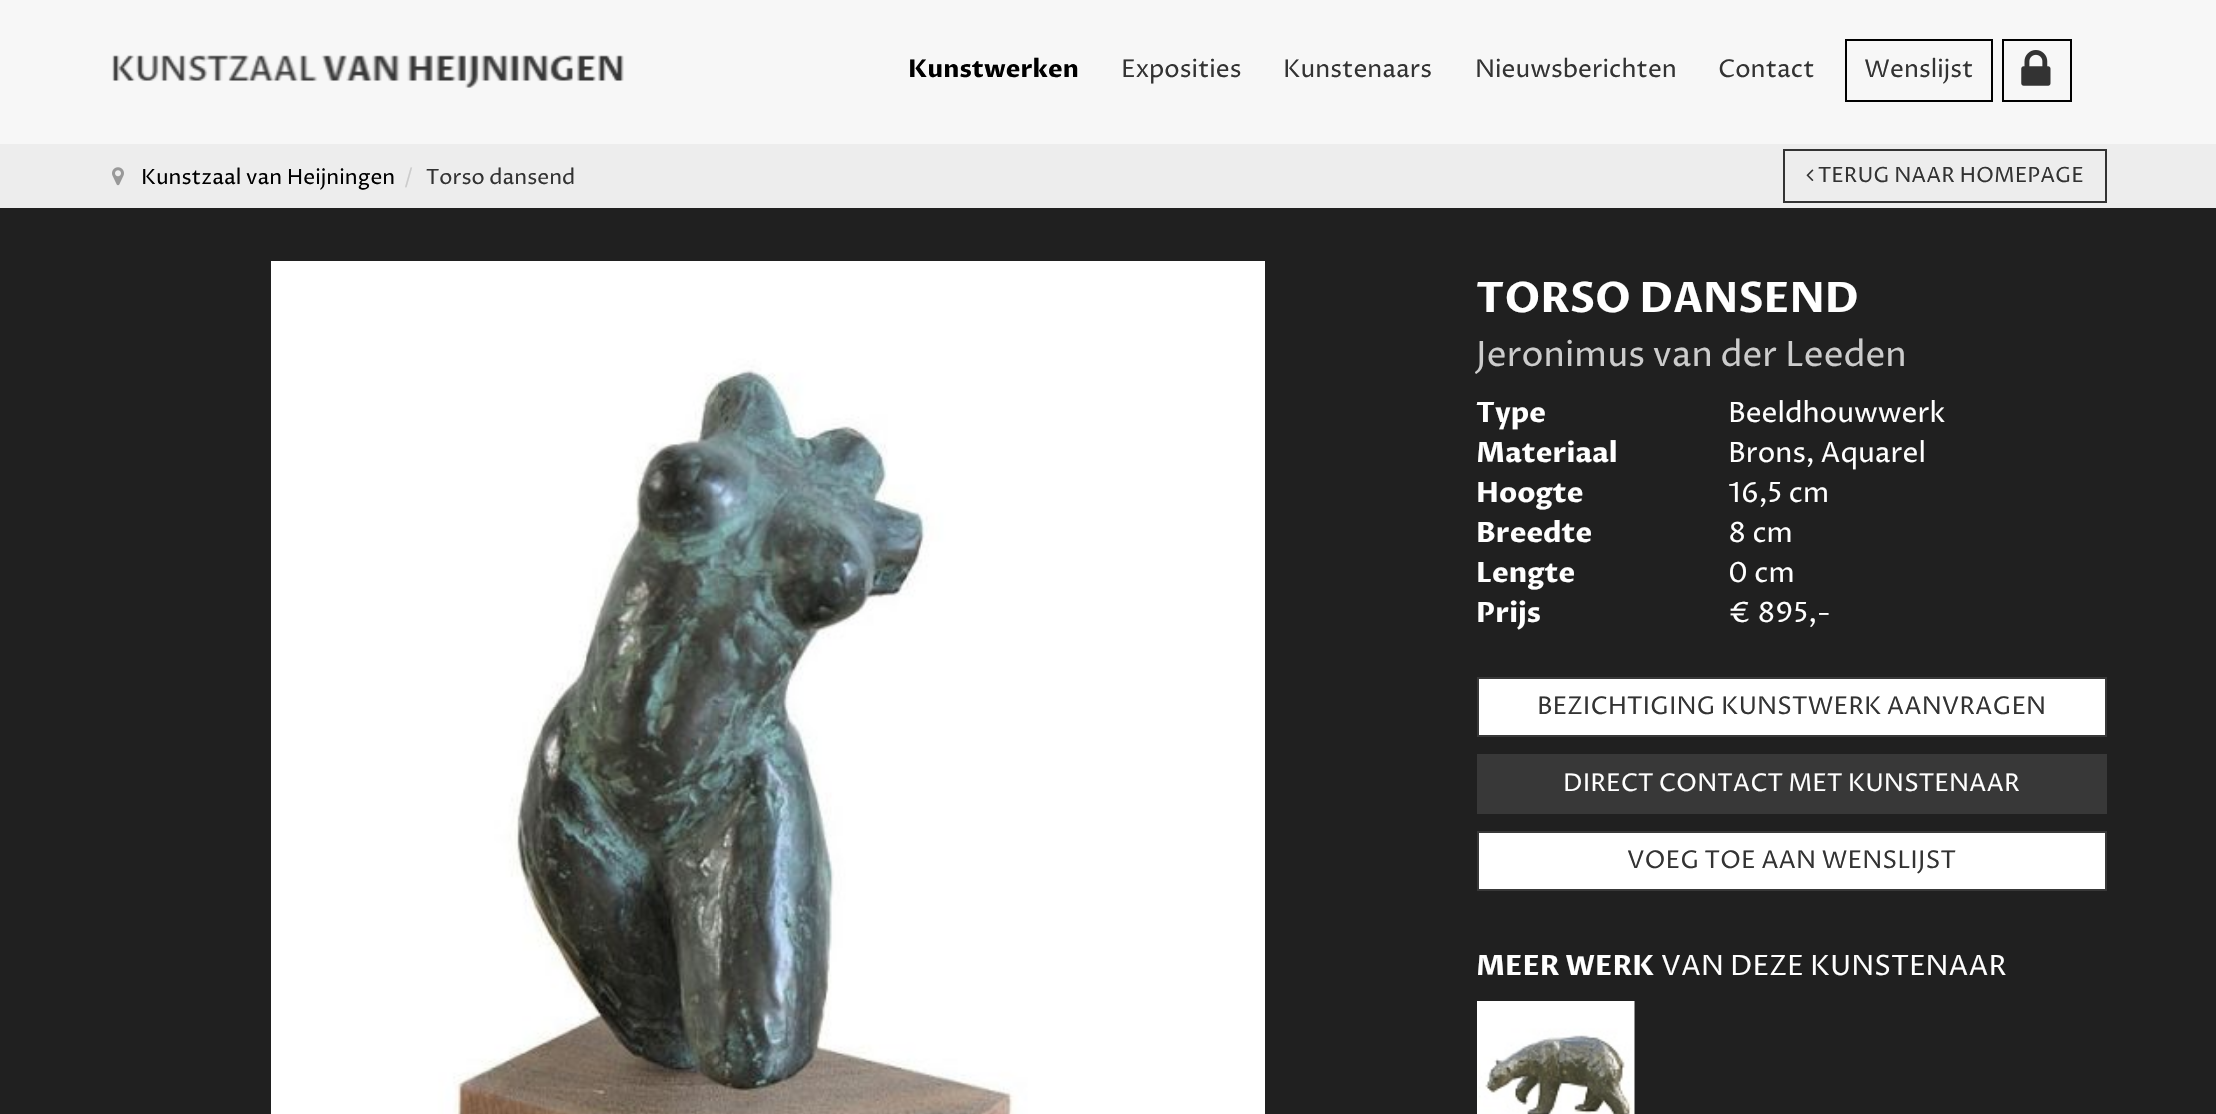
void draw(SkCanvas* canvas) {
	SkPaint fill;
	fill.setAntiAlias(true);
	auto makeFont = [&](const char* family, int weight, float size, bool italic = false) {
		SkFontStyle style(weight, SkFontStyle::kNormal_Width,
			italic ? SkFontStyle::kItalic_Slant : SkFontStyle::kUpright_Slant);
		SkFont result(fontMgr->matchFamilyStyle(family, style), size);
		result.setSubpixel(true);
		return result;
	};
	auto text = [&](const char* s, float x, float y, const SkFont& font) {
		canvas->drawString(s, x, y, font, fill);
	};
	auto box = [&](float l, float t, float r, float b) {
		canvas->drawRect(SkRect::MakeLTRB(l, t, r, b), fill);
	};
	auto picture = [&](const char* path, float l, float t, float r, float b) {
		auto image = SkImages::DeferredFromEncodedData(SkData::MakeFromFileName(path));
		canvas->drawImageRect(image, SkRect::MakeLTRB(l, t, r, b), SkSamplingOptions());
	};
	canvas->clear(0xFF202020);
	fill.setColor(0xFFF7F7F7);
	box(0, 0, 2216, 144);
	picture("image0.png", 112, 55, 624, 88);
	fill.setStyle(SkPaint::kStroke_Style);
	fill.setStrokeWidth(2);
	fill.setColor(0xFF000000);
	canvas->drawRect(SkRect::MakeLTRB(1846, 40, 1992, 101), fill);
	canvas->drawRect(SkRect::MakeLTRB(2003, 40, 2071, 101), fill);
	picture("image1.png", 2021, 50, 2051, 86);
	fill.setStyle(SkPaint::kFill_Style);
	fill.setColor(0xFFEDEDED);
	box(0, 144, 2216, 208);
	picture("image2.png", 112, 167, 124, 186);
	fill.setStyle(SkPaint::kStroke_Style);
	fill.setColor(0xFF333333);
	canvas->drawRect(SkRect::MakeLTRB(1784, 150, 2106, 202), fill);
	picture("image3.png", 1806, 169, 1814, 181);
	picture("image4.png", 271, 261, 1265, 1114);
	fill.setStyle(SkPaint::kFill_Style);
	fill.setColor(0xFFFFFFFF);
	canvas->drawRect(SkRect::MakeLTRB(1478, 678, 2106, 736), fill);
	fill.setStyle(SkPaint::kStroke_Style);
	fill.setColor(0xFF383838);
	canvas->drawRect(SkRect::MakeLTRB(1478, 678, 2106, 736), fill);
	fill.setStyle(SkPaint::kFill_Style);
	box(1477, 754, 2107, 814);
	fill.setColor(0xFFFFFFFF);
	canvas->drawRect(SkRect::MakeLTRB(1478, 832, 2106, 890), fill);
	fill.setStyle(SkPaint::kStroke_Style);
	fill.setColor(0xFF383838);
	canvas->drawRect(SkRect::MakeLTRB(1478, 832, 2106, 890), fill);
	picture("image5.png", 1477, 1001, 1635, 1114);
	auto font1 = makeFont("Proza Libre", 700, 24.5f);
	fill.setStyle(SkPaint::kFill_Style);
	fill.setColor(0xFF000000);
	text("Kunstwerken", 908, 77, font1);
	auto font2 = makeFont("Proza Libre", 400, 24.5f);
	fill.setColor(0xFF333333);
	text("Exposities", 1121, 77, font2);
	text("Kunstenaars", 1283, 77, font2);
	text("Nieuwsberichten", 1475, 77, font2);
	text("Contact", 1718, 77, font2);
	text("Wenslijst", 1864, 77, font2);
	auto font3 = makeFont("Proza Libre", 400, 21);
	fill.setColor(0xFF000000);
	text("Kunstzaal van Heijningen", 141, 184, font3);
	fill.setColor(0xFFCCCCCC);
	text("/", 404, 184, font3);
	fill.setColor(0xFF333333);
	text("Torso dansend", 426, 184, font3);
	text("TERUG NAAR HOMEPAGE", 1818, 182, font3);
	auto font4 = makeFont("Proza Libre", 700, 42);
	fill.setColor(0xFFFFFFFF);
	text("TORSO DANSEND", 1476, 312, font4);
	auto font5 = makeFont("Proza Libre", 400, 35);
	fill.setColor(0xFFCCCCCC);
	text("Jeronimus van der Leeden", 1476, 366, font5);
	auto font6 = makeFont("Proza Libre", 700, 28);
	fill.setColor(0xFFFFFFFF);
	text("Type", 1476, 422, font6);
	auto font7 = makeFont("Proza Libre", 400, 28);
	text("Beeldhouwwerk", 1728, 422, font7);
	text("Materiaal", 1476, 462, font6);
	text("Brons, Aquarel", 1728, 462, font7);
	text("Hoogte", 1476, 502, font6);
	text("16,5 cm", 1728, 502, font7);
	text("Breedte", 1476, 542, font6);
	text("8 cm", 1728, 542, font7);
	text("Lengte", 1476, 582, font6);
	text("0 cm", 1728, 582, font7);
	text("Prijs", 1476, 622, font6);
	text("€ 895,-", 1728, 622, font7);
	fill.setColor(0xFF333333);
	text("BEZICHTIGING KUNSTWERK AANVRAGEN", 1537, 714, font2);
	fill.setColor(0xFFFFFFFF);
	text("DIRECT CONTACT MET KUNSTENAAR", 1563, 791, font2);
	fill.setColor(0xFF333333);
	text("VOEG TOE AAN WENSLIJST", 1627, 868, font2);
	fill.setColor(0xFFFFFFFF);
	text("MEER WERK", 1476, 975, font6);
	text("VAN DEZE KUNSTENAAR", 1661, 975, font7);
}
